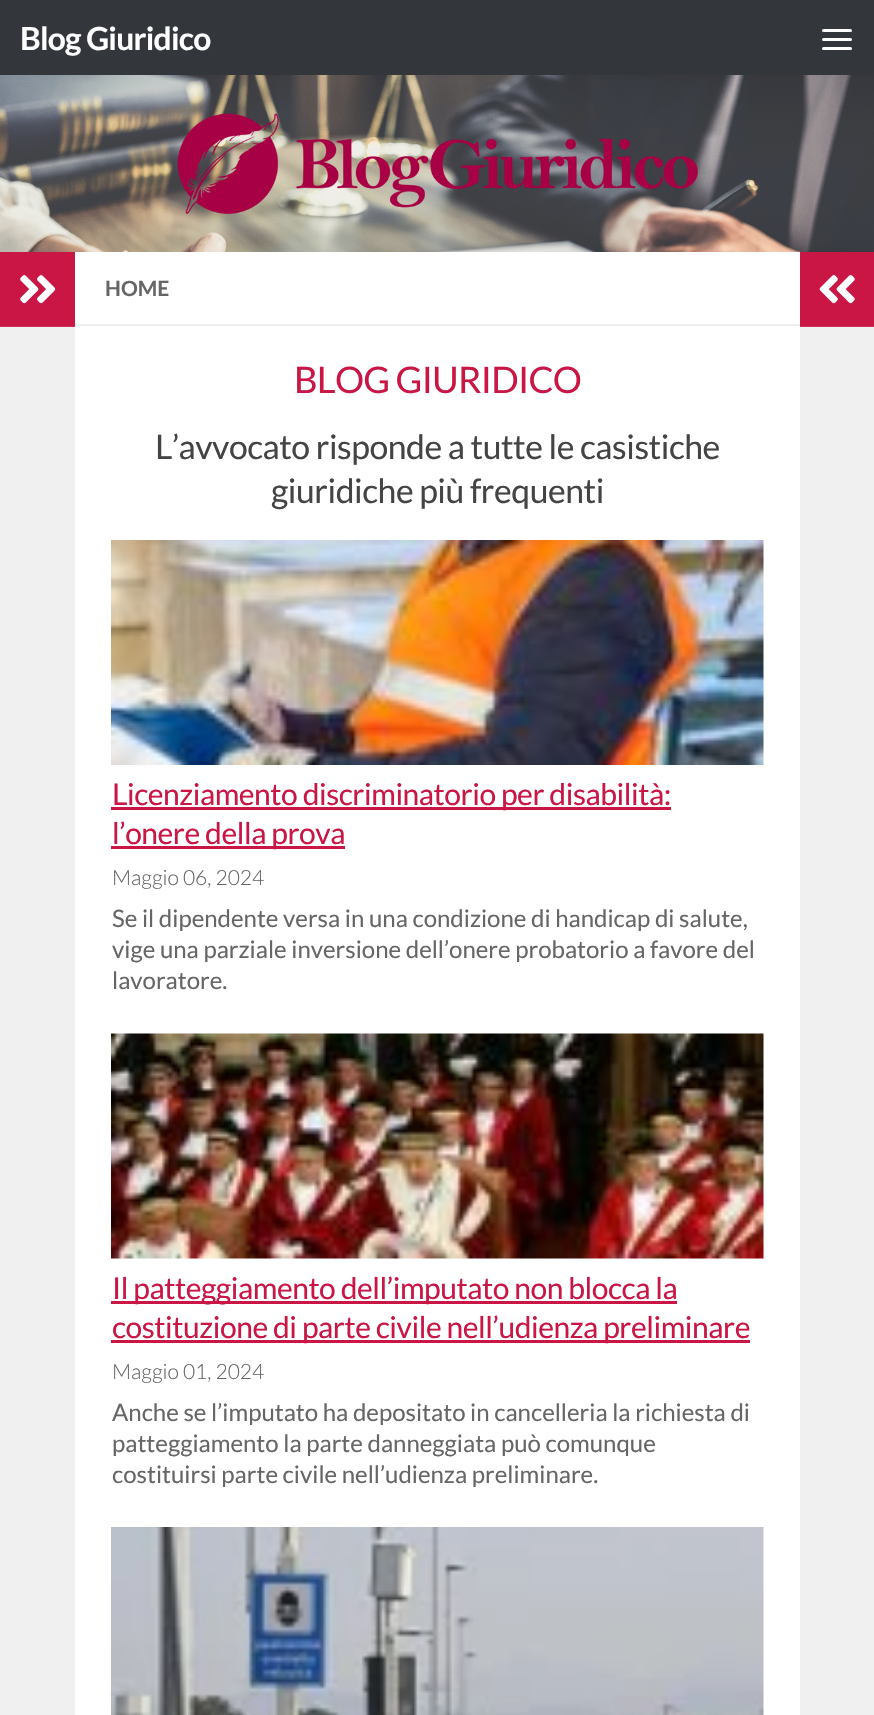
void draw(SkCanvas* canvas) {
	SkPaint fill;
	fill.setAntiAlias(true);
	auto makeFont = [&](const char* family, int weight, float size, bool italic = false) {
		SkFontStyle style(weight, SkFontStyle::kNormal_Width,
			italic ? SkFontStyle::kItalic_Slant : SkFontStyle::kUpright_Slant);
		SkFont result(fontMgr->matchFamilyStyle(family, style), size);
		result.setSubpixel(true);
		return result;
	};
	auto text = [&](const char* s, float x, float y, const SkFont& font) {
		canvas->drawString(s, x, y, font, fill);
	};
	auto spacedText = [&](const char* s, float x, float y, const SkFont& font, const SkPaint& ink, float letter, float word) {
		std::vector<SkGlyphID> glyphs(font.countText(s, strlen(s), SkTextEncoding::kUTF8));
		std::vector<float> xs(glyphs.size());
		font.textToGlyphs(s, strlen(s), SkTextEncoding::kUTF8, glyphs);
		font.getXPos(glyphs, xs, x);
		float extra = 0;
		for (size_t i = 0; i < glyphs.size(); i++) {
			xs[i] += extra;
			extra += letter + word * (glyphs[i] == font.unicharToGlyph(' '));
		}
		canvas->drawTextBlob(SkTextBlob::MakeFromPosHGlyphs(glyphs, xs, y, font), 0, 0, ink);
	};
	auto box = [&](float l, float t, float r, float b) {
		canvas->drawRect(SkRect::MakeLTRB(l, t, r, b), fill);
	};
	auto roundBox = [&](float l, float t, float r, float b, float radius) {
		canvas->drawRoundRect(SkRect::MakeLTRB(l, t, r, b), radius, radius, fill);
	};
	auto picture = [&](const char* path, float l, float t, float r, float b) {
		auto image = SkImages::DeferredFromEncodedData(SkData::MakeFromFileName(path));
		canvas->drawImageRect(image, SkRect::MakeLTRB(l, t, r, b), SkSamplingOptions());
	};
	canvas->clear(0xFFFFFFFF);
	fill.setColor(0xFF33363B);
	box(0, 0, 874, 75);
	fill.setColor(0xFFFFFFFF);
	roundBox(822, 29, 852, 32, 1.5f);
	roundBox(822, 38, 852, 41, 1.5f);
	roundBox(822, 47, 852, 50, 1.5f);
	picture("image0.png", 0, 75, 874, 252);
	fill.setColor(0xFFF0F0F0);
	box(0, 328, 75, 1715);
	fill.setColor(0xFFF2F2F2);
	box(0, 327, 75, 328);
	fill.setColor(0xFFC91645);
	box(0, 252, 75, 326);
	fill.setColor(0xFFCE2D58);
	box(0, 326, 75, 327);
	picture("image1.png", 20, 275, 56, 304);
	fill.setColor(0xFFEEEEEE);
	box(75, 324, 800, 326);
	picture("image2.png", 111, 540, 764, 765);
	fill.setColor(0xFFC91645);
	box(111, 807, 671, 810);
	box(111, 846, 345, 849);
	picture("image3.png", 111, 1033, 764, 1259);
	box(111, 1301, 677, 1304);
	box(111, 1340, 750, 1343);
	picture("image4.png", 111, 1527, 764, 1715);
	box(800, 252, 874, 326);
	fill.setColor(0xFFCE2D58);
	box(800, 326, 874, 327);
	picture("image5.png", 819, 275, 855, 304);
	fill.setColor(0xFFF0F0F0);
	box(800, 328, 874, 1715);
	fill.setColor(0xFFF2F2F2);
	box(800, 327, 874, 328);
	auto font1 = makeFont("Lato", 700, 31.75f);
	fill.setColor(0xFFFFFFFF);
	spacedText("Blog Giuridico", 20, 50, font1, fill, -0.75f, 0);
	auto font2 = makeFont("Lato", 700, 21);
	fill.setColor(0xFF666666);
	text("HOME", 105, 296, font2);
	auto font3 = makeFont("Lato", 400, 36.5f);
	fill.setColor(0xFFC91645);
	spacedText("BLOG GIURIDICO", 294, 393, font3, fill, -0.75f, 0);
	auto font4 = makeFont("Lato", 400, 33.75f);
	fill.setColor(0xFF444444);
	spacedText("L’avvocato risponde a tutte le casistiche", 155, 459, font4, fill, -0.45f, 0);
	spacedText("giuridiche più frequenti", 271, 503, font4, fill, -0.45f, 0);
	auto font5 = makeFont("Lato", 400, 30);
	fill.setColor(0xFFC91645);
	spacedText("Licenziamento discriminatorio per disabilità:", 112, 805, font5, fill, -0.45f, 0);
	spacedText("l’onere della prova", 112, 844, font5, fill, -0.45f, 0);
	auto font6 = makeFont("Lato", 300, 21);
	fill.setColor(0xFF666666);
	text("Maggio 06, 2024", 112, 885, font6);
	auto font7 = makeFont("Lato", 400, 24);
	text("Se il dipendente versa in una condizione di handicap di salute,", 112, 927, font7);
	text("vige una parziale inversione dell’onere probatorio a favore del", 112, 958, font7);
	text("lavoratore.", 112, 989, font7);
	fill.setColor(0xFFC91645);
	spacedText("Il patteggiamento dell’imputato non blocca la", 112, 1299, font5, fill, -0.45f, 0);
	spacedText("costituzione di parte civile nell’udienza preliminare", 112, 1338, font5, fill, -0.45f, 0);
	fill.setColor(0xFF666666);
	text("Maggio 01, 2024", 112, 1379, font6);
	text("Anche se l’imputato ha depositato in cancelleria la richiesta di", 112, 1421, font7);
	text("patteggiamento la parte danneggiata può comunque", 112, 1452, font7);
	text("costituirsi parte civile nell’udienza preliminare.", 112, 1483, font7);
}
